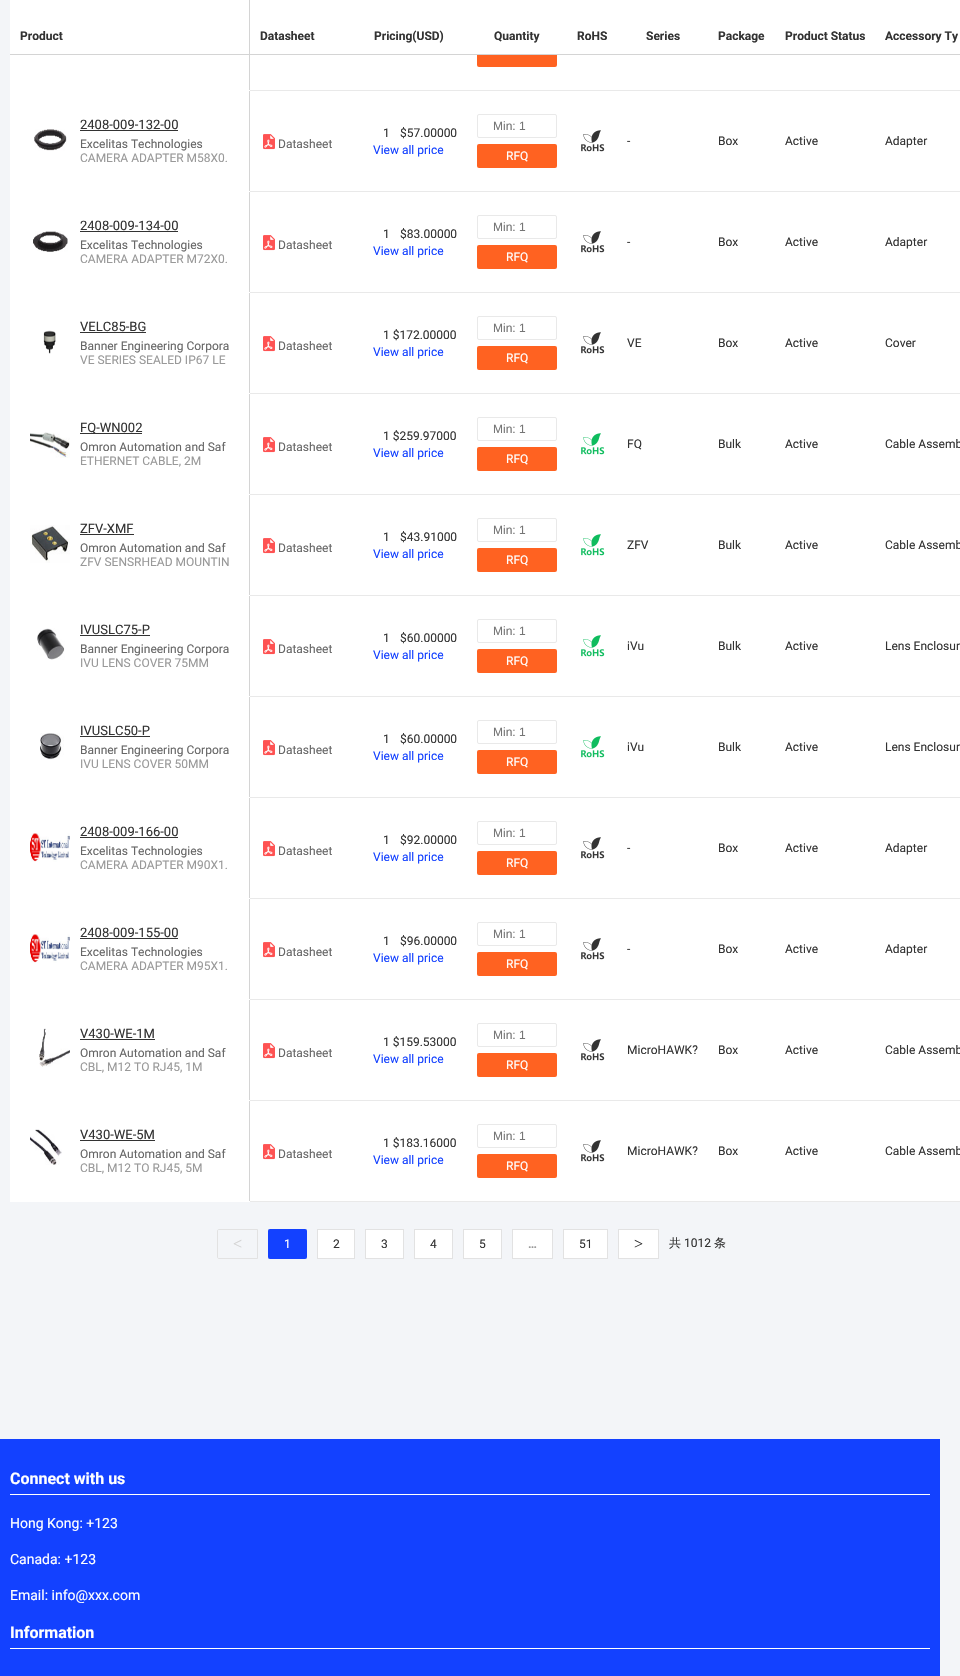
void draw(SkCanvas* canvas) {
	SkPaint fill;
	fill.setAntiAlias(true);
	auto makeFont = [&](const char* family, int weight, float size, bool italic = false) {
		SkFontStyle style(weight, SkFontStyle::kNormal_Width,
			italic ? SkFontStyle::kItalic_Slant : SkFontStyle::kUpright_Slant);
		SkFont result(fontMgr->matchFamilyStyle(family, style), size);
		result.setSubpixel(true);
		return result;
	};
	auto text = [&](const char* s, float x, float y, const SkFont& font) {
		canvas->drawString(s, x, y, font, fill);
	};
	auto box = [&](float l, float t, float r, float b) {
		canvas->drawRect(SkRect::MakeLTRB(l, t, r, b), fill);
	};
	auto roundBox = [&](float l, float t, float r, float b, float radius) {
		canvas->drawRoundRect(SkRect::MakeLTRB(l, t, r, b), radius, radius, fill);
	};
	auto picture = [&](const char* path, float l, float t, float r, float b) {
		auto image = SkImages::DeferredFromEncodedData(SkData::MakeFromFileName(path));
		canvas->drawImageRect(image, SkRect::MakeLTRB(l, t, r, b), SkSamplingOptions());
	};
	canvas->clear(0xFFF3F5F8);
	fill.setColor(0xFFFFFFFF);
	box(10, 0, 249, 54);
	box(250, 55, 960, 1201);
	fill.setColor(0xFFFF6221);
	roundBox(477, 43, 557, 67, 2);
	fill.setColor(0xFFFFFFFF);
	box(250, 0, 960, 54);
	fill.setColor(0xFFD4D4D4);
	box(10, 54, 960, 55);
	fill.setColor(0xFFFFFFFF);
	box(10, 55, 250, 1202);
	fill.setColor(0xFFD4D4D4);
	box(249, 0, 250, 90);
	fill.setColor(0xFFE9E9E9);
	box(250, 90, 960, 91);
	fill.setColor(0xFFD4D4D4);
	box(249, 91, 250, 191);
	picture("image0.png", 34, 129, 67, 151);
	fill.setColor(0xFF333333);
	box(80, 130, 178, 131);
	picture("image1.png", 263, 134, 275, 150);
	fill.setStyle(SkPaint::kStroke_Style);
	fill.setStrokeWidth(1);
	fill.setColor(0xFFE9E9E9);
	canvas->drawRoundRect(SkRect::MakeLTRB(477.5f, 114.5f, 556.5f, 137.5f), 1.5f, 1.5f, fill);
	fill.setStyle(SkPaint::kFill_Style);
	fill.setColor(0xFFFF6221);
	roundBox(477, 144, 557, 168, 2);
	picture("image2.png", 581, 130, 605, 152);
	fill.setColor(0xFFE9E9E9);
	box(250, 191, 960, 192);
	fill.setColor(0xFFD4D4D4);
	box(249, 192, 250, 292);
	picture("image3.png", 33, 231, 68, 252);
	fill.setColor(0xFF333333);
	box(80, 231, 178, 232);
	picture("image1.png", 263, 235, 275, 251);
	fill.setStyle(SkPaint::kStroke_Style);
	fill.setColor(0xFFE9E9E9);
	canvas->drawRoundRect(SkRect::MakeLTRB(477.5f, 215.5f, 556.5f, 238.5f), 1.5f, 1.5f, fill);
	fill.setStyle(SkPaint::kFill_Style);
	fill.setColor(0xFFFF6221);
	roundBox(477, 245, 557, 269, 2);
	picture("image2.png", 581, 231, 605, 253);
	fill.setColor(0xFFE9E9E9);
	box(250, 292, 960, 293);
	fill.setColor(0xFFD4D4D4);
	box(249, 293, 250, 393);
	picture("image4.png", 43, 330, 56, 354);
	fill.setColor(0xFF333333);
	box(80, 332, 146, 333);
	picture("image1.png", 263, 336, 275, 352);
	fill.setStyle(SkPaint::kStroke_Style);
	fill.setColor(0xFFE9E9E9);
	canvas->drawRoundRect(SkRect::MakeLTRB(477.5f, 316.5f, 556.5f, 339.5f), 1.5f, 1.5f, fill);
	fill.setStyle(SkPaint::kFill_Style);
	fill.setColor(0xFFFF6221);
	roundBox(477, 346, 557, 370, 2);
	picture("image2.png", 581, 332, 605, 354);
	fill.setColor(0xFFE9E9E9);
	box(250, 393, 960, 394);
	fill.setColor(0xFFD4D4D4);
	box(249, 394, 250, 494);
	picture("image5.png", 30, 432, 70, 458);
	fill.setColor(0xFF333333);
	box(80, 433, 142, 434);
	picture("image1.png", 263, 437, 275, 453);
	fill.setStyle(SkPaint::kStroke_Style);
	fill.setColor(0xFFE9E9E9);
	canvas->drawRoundRect(SkRect::MakeLTRB(477.5f, 417.5f, 556.5f, 440.5f), 1.5f, 1.5f, fill);
	fill.setStyle(SkPaint::kFill_Style);
	fill.setColor(0xFFFF6221);
	roundBox(477, 447, 557, 471, 2);
	picture("image6.png", 581, 433, 605, 455);
	fill.setColor(0xFFE9E9E9);
	box(250, 494, 960, 495);
	fill.setColor(0xFFD4D4D4);
	box(249, 495, 250, 595);
	picture("image7.png", 30, 525, 70, 563);
	fill.setColor(0xFF333333);
	box(80, 534, 134, 535);
	picture("image1.png", 263, 538, 275, 554);
	fill.setStyle(SkPaint::kStroke_Style);
	fill.setColor(0xFFE9E9E9);
	canvas->drawRoundRect(SkRect::MakeLTRB(477.5f, 518.5f, 556.5f, 541.5f), 1.5f, 1.5f, fill);
	fill.setStyle(SkPaint::kFill_Style);
	fill.setColor(0xFFFF6221);
	roundBox(477, 548, 557, 572, 2);
	picture("image6.png", 581, 534, 605, 556);
	fill.setColor(0xFFE9E9E9);
	box(250, 595, 960, 596);
	fill.setColor(0xFFD4D4D4);
	box(249, 596, 250, 696);
	picture("image8.png", 37, 628, 65, 660);
	fill.setColor(0xFF333333);
	box(80, 635, 150, 636);
	picture("image1.png", 263, 639, 275, 655);
	fill.setStyle(SkPaint::kStroke_Style);
	fill.setColor(0xFFE9E9E9);
	canvas->drawRoundRect(SkRect::MakeLTRB(477.5f, 619.5f, 556.5f, 642.5f), 1.5f, 1.5f, fill);
	fill.setStyle(SkPaint::kFill_Style);
	fill.setColor(0xFFFF6221);
	roundBox(477, 649, 557, 673, 2);
	picture("image6.png", 581, 635, 605, 657);
	fill.setColor(0xFFE9E9E9);
	box(250, 696, 960, 697);
	fill.setColor(0xFFD4D4D4);
	box(249, 697, 250, 797);
	picture("image9.png", 40, 733, 64, 760);
	fill.setColor(0xFF333333);
	box(80, 736, 150, 737);
	picture("image1.png", 263, 740, 275, 756);
	fill.setStyle(SkPaint::kStroke_Style);
	fill.setColor(0xFFE9E9E9);
	canvas->drawRoundRect(SkRect::MakeLTRB(477.5f, 720.5f, 556.5f, 743.5f), 1.5f, 1.5f, fill);
	fill.setStyle(SkPaint::kFill_Style);
	fill.setColor(0xFFFF6221);
	roundBox(477, 750, 557, 774, 2);
	picture("image6.png", 581, 736, 605, 758);
	fill.setColor(0xFFE9E9E9);
	box(250, 797, 960, 798);
	fill.setColor(0xFFD4D4D4);
	box(249, 798, 250, 898);
	picture("image10.png", 30, 833, 70, 862);
	fill.setColor(0xFF333333);
	box(80, 837, 178, 838);
	picture("image1.png", 263, 841, 275, 857);
	fill.setStyle(SkPaint::kStroke_Style);
	fill.setColor(0xFFE9E9E9);
	canvas->drawRoundRect(SkRect::MakeLTRB(477.5f, 821.5f, 556.5f, 844.5f), 1.5f, 1.5f, fill);
	fill.setStyle(SkPaint::kFill_Style);
	fill.setColor(0xFFFF6221);
	roundBox(477, 851, 557, 875, 2);
	picture("image2.png", 581, 837, 605, 859);
	fill.setColor(0xFFE9E9E9);
	box(250, 898, 960, 899);
	fill.setColor(0xFFD4D4D4);
	box(249, 899, 250, 999);
	picture("image10.png", 30, 934, 70, 963);
	fill.setColor(0xFF333333);
	box(80, 938, 178, 939);
	picture("image1.png", 263, 942, 275, 958);
	fill.setStyle(SkPaint::kStroke_Style);
	fill.setColor(0xFFE9E9E9);
	canvas->drawRoundRect(SkRect::MakeLTRB(477.5f, 922.5f, 556.5f, 945.5f), 1.5f, 1.5f, fill);
	fill.setStyle(SkPaint::kFill_Style);
	fill.setColor(0xFFFF6221);
	roundBox(477, 952, 557, 976, 2);
	picture("image2.png", 581, 938, 605, 960);
	fill.setColor(0xFFE9E9E9);
	box(250, 999, 960, 1000);
	fill.setColor(0xFFD4D4D4);
	box(249, 1000, 250, 1100);
	picture("image11.png", 39, 1028, 70, 1067);
	fill.setColor(0xFF333333);
	box(80, 1039, 155, 1040);
	picture("image1.png", 263, 1043, 275, 1059);
	fill.setStyle(SkPaint::kStroke_Style);
	fill.setColor(0xFFE9E9E9);
	canvas->drawRoundRect(SkRect::MakeLTRB(477.5f, 1023.5f, 556.5f, 1046.5f), 1.5f, 1.5f, fill);
	fill.setStyle(SkPaint::kFill_Style);
	fill.setColor(0xFFFF6221);
	roundBox(477, 1053, 557, 1077, 2);
	picture("image2.png", 581, 1039, 605, 1061);
	fill.setColor(0xFFE9E9E9);
	box(250, 1100, 960, 1101);
	fill.setColor(0xFFD4D4D4);
	box(249, 1101, 250, 1201);
	picture("image12.png", 30, 1129, 62, 1165);
	fill.setColor(0xFF333333);
	box(80, 1140, 155, 1141);
	picture("image1.png", 263, 1144, 275, 1160);
	fill.setStyle(SkPaint::kStroke_Style);
	fill.setColor(0xFFE9E9E9);
	canvas->drawRoundRect(SkRect::MakeLTRB(477.5f, 1124.5f, 556.5f, 1147.5f), 1.5f, 1.5f, fill);
	fill.setStyle(SkPaint::kFill_Style);
	fill.setColor(0xFFFF6221);
	roundBox(477, 1154, 557, 1178, 2);
	picture("image2.png", 581, 1140, 605, 1162);
	fill.setColor(0xFFE9E9E9);
	box(250, 1201, 960, 1202);
	fill.setStyle(SkPaint::kStroke_Style);
	fill.setColor(0xFFE2E2E2);
	canvas->drawPath(SkPathBuilder().moveTo(219, 1229.5f).lineTo(257.5f, 1229.5f).lineTo(257.5f, 1258.5f).lineTo(219, 1258.5f).cubicTo(218, 1258.5f, 217.5f, 1258, 217.5f, 1257).lineTo(217.5f, 1231).cubicTo(217.5f, 1230, 218, 1229.5f, 219, 1229.5f).close().detach(), fill);
	canvas->drawRect(SkRect::MakeLTRB(268.5f, 1229.5f, 306.5f, 1258.5f), fill);
	fill.setStyle(SkPaint::kFill_Style);
	fill.setColor(0xFF1341FF);
	roundBox(268, 1229, 307, 1259, 2);
	fill.setColor(0xFFFFFFFF);
	canvas->drawRect(SkRect::MakeLTRB(317.5f, 1229.5f, 354.5f, 1258.5f), fill);
	fill.setStyle(SkPaint::kStroke_Style);
	fill.setColor(0xFFE2E2E2);
	canvas->drawRect(SkRect::MakeLTRB(317.5f, 1229.5f, 354.5f, 1258.5f), fill);
	fill.setStyle(SkPaint::kFill_Style);
	fill.setColor(0xFFFFFFFF);
	canvas->drawRect(SkRect::MakeLTRB(365.5f, 1229.5f, 403.5f, 1258.5f), fill);
	fill.setStyle(SkPaint::kStroke_Style);
	fill.setColor(0xFFE2E2E2);
	canvas->drawRect(SkRect::MakeLTRB(365.5f, 1229.5f, 403.5f, 1258.5f), fill);
	fill.setStyle(SkPaint::kFill_Style);
	fill.setColor(0xFFFFFFFF);
	canvas->drawRect(SkRect::MakeLTRB(414.5f, 1229.5f, 452.5f, 1258.5f), fill);
	fill.setStyle(SkPaint::kStroke_Style);
	fill.setColor(0xFFE2E2E2);
	canvas->drawRect(SkRect::MakeLTRB(414.5f, 1229.5f, 452.5f, 1258.5f), fill);
	fill.setStyle(SkPaint::kFill_Style);
	fill.setColor(0xFFFFFFFF);
	canvas->drawRect(SkRect::MakeLTRB(463.5f, 1229.5f, 501.5f, 1258.5f), fill);
	fill.setStyle(SkPaint::kStroke_Style);
	fill.setColor(0xFFE2E2E2);
	canvas->drawRect(SkRect::MakeLTRB(463.5f, 1229.5f, 501.5f, 1258.5f), fill);
	fill.setStyle(SkPaint::kFill_Style);
	fill.setColor(0xFFFFFFFF);
	canvas->drawRect(SkRect::MakeLTRB(512.5f, 1229.5f, 552.5f, 1258.5f), fill);
	fill.setStyle(SkPaint::kStroke_Style);
	fill.setColor(0xFFE2E2E2);
	canvas->drawRect(SkRect::MakeLTRB(512.5f, 1229.5f, 552.5f, 1258.5f), fill);
	fill.setStyle(SkPaint::kFill_Style);
	fill.setColor(0xFFFFFFFF);
	canvas->drawRect(SkRect::MakeLTRB(563.5f, 1229.5f, 607.5f, 1258.5f), fill);
	fill.setStyle(SkPaint::kStroke_Style);
	fill.setColor(0xFFE2E2E2);
	canvas->drawRect(SkRect::MakeLTRB(563.5f, 1229.5f, 607.5f, 1258.5f), fill);
	fill.setStyle(SkPaint::kFill_Style);
	fill.setColor(0xFFFFFFFF);
	canvas->drawRect(SkRect::MakeLTRB(618.5f, 1229.5f, 658.5f, 1258.5f), fill);
	fill.setStyle(SkPaint::kStroke_Style);
	fill.setColor(0xFFE2E2E2);
	canvas->drawRect(SkRect::MakeLTRB(618.5f, 1229.5f, 658.5f, 1258.5f), fill);
	fill.setStyle(SkPaint::kFill_Style);
	fill.setColor(0xFF1341FF);
	box(0, 1439, 940, 1676);
	fill.setColor(0xFFFFFFFF);
	box(10, 1494, 930, 1495);
	box(10, 1648, 930, 1649);
	auto font1 = makeFont("Roboto", 700, 12);
	fill.setColor(0xFF333333);
	text("Product", 20, 40, font1);
	text("Datasheet", 260, 40, font1);
	text("Pricing(USD)", 374, 40, font1);
	text("Quantity", 494, 40, font1);
	text("RoHS", 577, 40, font1);
	text("Series", 646, 40, font1);
	text("Package", 718, 40, font1);
	text("Product Status", 785, 40, font1);
	text("Accessory Ty", 885, 40, font1);
	auto font2 = makeFont("Roboto", 400, 13);
	text("2408-009-132-00", 80, 129, font2);
	auto font3 = makeFont("Roboto", 400, 12);
	fill.setColor(0xFF666666);
	text("Excelitas Technologies", 80, 148, font3);
	fill.setColor(0xFF999999);
	text("CAMERA ADAPTER M58X0.", 80, 162, font3);
	fill.setColor(0xFF666666);
	text("Datasheet", 278, 148, font3);
	fill.setColor(0xFF333333);
	text("1", 383, 137, font3);
	text("$57.00000", 400, 137, font3);
	fill.setColor(0xFF1341FF);
	text("View all price", 373, 154, font3);
	auto font4 = makeFont("Liberation Sans", 400, 12);
	fill.setColor(0xFF757575);
	text("Min: 1", 493, 130, font4);
	fill.setColor(0xFFFFFFFF);
	text("RFQ", 506, 160, font3);
	fill.setColor(0xFF333333);
	text("-", 627, 145, font3);
	text("Box", 718, 145, font3);
	text("Active", 785, 145, font3);
	text("Adapter", 885, 145, font3);
	text("2408-009-134-00", 80, 230, font2);
	fill.setColor(0xFF666666);
	text("Excelitas Technologies", 80, 249, font3);
	fill.setColor(0xFF999999);
	text("CAMERA ADAPTER M72X0.", 80, 263, font3);
	fill.setColor(0xFF666666);
	text("Datasheet", 278, 249, font3);
	fill.setColor(0xFF333333);
	text("1", 383, 238, font3);
	text("$83.00000", 400, 238, font3);
	fill.setColor(0xFF1341FF);
	text("View all price", 373, 255, font3);
	fill.setColor(0xFF757575);
	text("Min: 1", 493, 231, font4);
	fill.setColor(0xFFFFFFFF);
	text("RFQ", 506, 261, font3);
	fill.setColor(0xFF333333);
	text("-", 627, 246, font3);
	text("Box", 718, 246, font3);
	text("Active", 785, 246, font3);
	text("Adapter", 885, 246, font3);
	text("VELC85-BG", 80, 331, font2);
	fill.setColor(0xFF666666);
	text("Banner Engineering Corpora", 80, 350, font3);
	fill.setColor(0xFF999999);
	text("VE SERIES SEALED IP67 LE", 80, 364, font3);
	fill.setColor(0xFF666666);
	text("Datasheet", 278, 350, font3);
	fill.setColor(0xFF333333);
	text("1 $172.00000", 383, 339, font3);
	fill.setColor(0xFF1341FF);
	text("View all price", 373, 356, font3);
	fill.setColor(0xFF757575);
	text("Min: 1", 493, 332, font4);
	fill.setColor(0xFFFFFFFF);
	text("RFQ", 506, 362, font3);
	fill.setColor(0xFF333333);
	text("VE", 627, 347, font3);
	text("Box", 718, 347, font3);
	text("Active", 785, 347, font3);
	text("Cover", 885, 347, font3);
	text("FQ-WN002", 80, 432, font2);
	fill.setColor(0xFF666666);
	text("Omron Automation and Saf", 80, 451, font3);
	fill.setColor(0xFF999999);
	text("ETHERNET CABLE, 2M", 80, 465, font3);
	fill.setColor(0xFF666666);
	text("Datasheet", 278, 451, font3);
	fill.setColor(0xFF333333);
	text("1 $259.97000", 383, 440, font3);
	fill.setColor(0xFF1341FF);
	text("View all price", 373, 457, font3);
	fill.setColor(0xFF757575);
	text("Min: 1", 493, 433, font4);
	fill.setColor(0xFFFFFFFF);
	text("RFQ", 506, 463, font3);
	fill.setColor(0xFF333333);
	text("FQ", 627, 448, font3);
	text("Bulk", 718, 448, font3);
	text("Active", 785, 448, font3);
	text("Cable Assemb", 885, 448, font3);
	text("ZFV-XMF", 80, 533, font2);
	fill.setColor(0xFF666666);
	text("Omron Automation and Saf", 80, 552, font3);
	fill.setColor(0xFF999999);
	text("ZFV SENSRHEAD MOUNTIN", 80, 566, font3);
	fill.setColor(0xFF666666);
	text("Datasheet", 278, 552, font3);
	fill.setColor(0xFF333333);
	text("1", 383, 541, font3);
	text("$43.91000", 400, 541, font3);
	fill.setColor(0xFF1341FF);
	text("View all price", 373, 558, font3);
	fill.setColor(0xFF757575);
	text("Min: 1", 493, 534, font4);
	fill.setColor(0xFFFFFFFF);
	text("RFQ", 506, 564, font3);
	fill.setColor(0xFF333333);
	text("ZFV", 627, 549, font3);
	text("Bulk", 718, 549, font3);
	text("Active", 785, 549, font3);
	text("Cable Assemb", 885, 549, font3);
	text("IVUSLC75-P", 80, 634, font2);
	fill.setColor(0xFF666666);
	text("Banner Engineering Corpora", 80, 653, font3);
	fill.setColor(0xFF999999);
	text("IVU LENS COVER 75MM", 80, 667, font3);
	fill.setColor(0xFF666666);
	text("Datasheet", 278, 653, font3);
	fill.setColor(0xFF333333);
	text("1", 383, 642, font3);
	text("$60.00000", 400, 642, font3);
	fill.setColor(0xFF1341FF);
	text("View all price", 373, 659, font3);
	fill.setColor(0xFF757575);
	text("Min: 1", 493, 635, font4);
	fill.setColor(0xFFFFFFFF);
	text("RFQ", 506, 665, font3);
	fill.setColor(0xFF333333);
	text("iVu", 627, 650, font3);
	text("Bulk", 718, 650, font3);
	text("Active", 785, 650, font3);
	text("Lens Enclosur", 885, 650, font3);
	text("IVUSLC50-P", 80, 735, font2);
	fill.setColor(0xFF666666);
	text("Banner Engineering Corpora", 80, 754, font3);
	fill.setColor(0xFF999999);
	text("IVU LENS COVER 50MM", 80, 768, font3);
	fill.setColor(0xFF666666);
	text("Datasheet", 278, 754, font3);
	fill.setColor(0xFF333333);
	text("1", 383, 743, font3);
	text("$60.00000", 400, 743, font3);
	fill.setColor(0xFF1341FF);
	text("View all price", 373, 760, font3);
	fill.setColor(0xFF757575);
	text("Min: 1", 493, 736, font4);
	fill.setColor(0xFFFFFFFF);
	text("RFQ", 506, 766, font3);
	fill.setColor(0xFF333333);
	text("iVu", 627, 751, font3);
	text("Bulk", 718, 751, font3);
	text("Active", 785, 751, font3);
	text("Lens Enclosur", 885, 751, font3);
	text("2408-009-166-00", 80, 836, font2);
	fill.setColor(0xFF666666);
	text("Excelitas Technologies", 80, 855, font3);
	fill.setColor(0xFF999999);
	text("CAMERA ADAPTER M90X1.", 80, 869, font3);
	fill.setColor(0xFF666666);
	text("Datasheet", 278, 855, font3);
	fill.setColor(0xFF333333);
	text("1", 383, 844, font3);
	text("$92.00000", 400, 844, font3);
	fill.setColor(0xFF1341FF);
	text("View all price", 373, 861, font3);
	fill.setColor(0xFF757575);
	text("Min: 1", 493, 837, font4);
	fill.setColor(0xFFFFFFFF);
	text("RFQ", 506, 867, font3);
	fill.setColor(0xFF333333);
	text("-", 627, 852, font3);
	text("Box", 718, 852, font3);
	text("Active", 785, 852, font3);
	text("Adapter", 885, 852, font3);
	text("2408-009-155-00", 80, 937, font2);
	fill.setColor(0xFF666666);
	text("Excelitas Technologies", 80, 956, font3);
	fill.setColor(0xFF999999);
	text("CAMERA ADAPTER M95X1.", 80, 970, font3);
	fill.setColor(0xFF666666);
	text("Datasheet", 278, 956, font3);
	fill.setColor(0xFF333333);
	text("1", 383, 945, font3);
	text("$96.00000", 400, 945, font3);
	fill.setColor(0xFF1341FF);
	text("View all price", 373, 962, font3);
	fill.setColor(0xFF757575);
	text("Min: 1", 493, 938, font4);
	fill.setColor(0xFFFFFFFF);
	text("RFQ", 506, 968, font3);
	fill.setColor(0xFF333333);
	text("-", 627, 953, font3);
	text("Box", 718, 953, font3);
	text("Active", 785, 953, font3);
	text("Adapter", 885, 953, font3);
	text("V430-WE-1M", 80, 1038, font2);
	fill.setColor(0xFF666666);
	text("Omron Automation and Saf", 80, 1057, font3);
	fill.setColor(0xFF999999);
	text("CBL, M12 TO RJ45, 1M", 80, 1071, font3);
	fill.setColor(0xFF666666);
	text("Datasheet", 278, 1057, font3);
	fill.setColor(0xFF333333);
	text("1 $159.53000", 383, 1046, font3);
	fill.setColor(0xFF1341FF);
	text("View all price", 373, 1063, font3);
	fill.setColor(0xFF757575);
	text("Min: 1", 493, 1039, font4);
	fill.setColor(0xFFFFFFFF);
	text("RFQ", 506, 1069, font3);
	fill.setColor(0xFF333333);
	text("MicroHAWK?", 627, 1054, font3);
	text("Box", 718, 1054, font3);
	text("Active", 785, 1054, font3);
	text("Cable Assemb", 885, 1054, font3);
	text("V430-WE-5M", 80, 1139, font2);
	fill.setColor(0xFF666666);
	text("Omron Automation and Saf", 80, 1158, font3);
	fill.setColor(0xFF999999);
	text("CBL, M12 TO RJ45, 5M", 80, 1172, font3);
	fill.setColor(0xFF666666);
	text("Datasheet", 278, 1158, font3);
	fill.setColor(0xFF333333);
	text("1 $183.16000", 383, 1147, font3);
	fill.setColor(0xFF1341FF);
	text("View all price", 373, 1164, font3);
	fill.setColor(0xFF757575);
	text("Min: 1", 493, 1140, font4);
	fill.setColor(0xFFFFFFFF);
	text("RFQ", 506, 1170, font3);
	fill.setColor(0xFF333333);
	text("MicroHAWK?", 627, 1155, font3);
	text("Box", 718, 1155, font3);
	text("Active", 785, 1155, font3);
	text("Cable Assemb", 885, 1155, font3);
	auto font5 = makeFont("Liberation Serif", 400, 16);
	fill.setColor(0xFFD2D2D2);
	text("<", 233, 1249, font5);
	fill.setColor(0xFFFFFFFF);
	text("1", 284, 1248, font3);
	fill.setColor(0xFF333333);
	text("2", 333, 1248, font3);
	text("3", 381, 1248, font3);
	text("4", 430, 1248, font3);
	text("5", 479, 1248, font3);
	fill.setColor(0xFF999999);
	text("…", 528, 1248, font1);
	fill.setColor(0xFF333333);
	text("51", 579, 1248, font3);
	text(">", 634, 1249, font5);
	auto font6 = makeFont("WenQuanYi Zen Hei", 500, 12);
	text("共", 669, 1247, font6);
	text("1012", 684, 1247, font3);
	text("条", 714, 1247, font6);
	auto font7 = makeFont("Roboto", 700, 16);
	fill.setColor(0xFFFFFFFF);
	text("Connect with us", 10, 1484, font7);
	auto font8 = makeFont("Roboto", 400, 14);
	text("Hong Kong: +123", 10, 1528, font8);
	text("Canada: +123", 10, 1564, font8);
	text("Email: info@xxx.com", 10, 1600, font8);
	text("Information", 10, 1638, font7);
}
